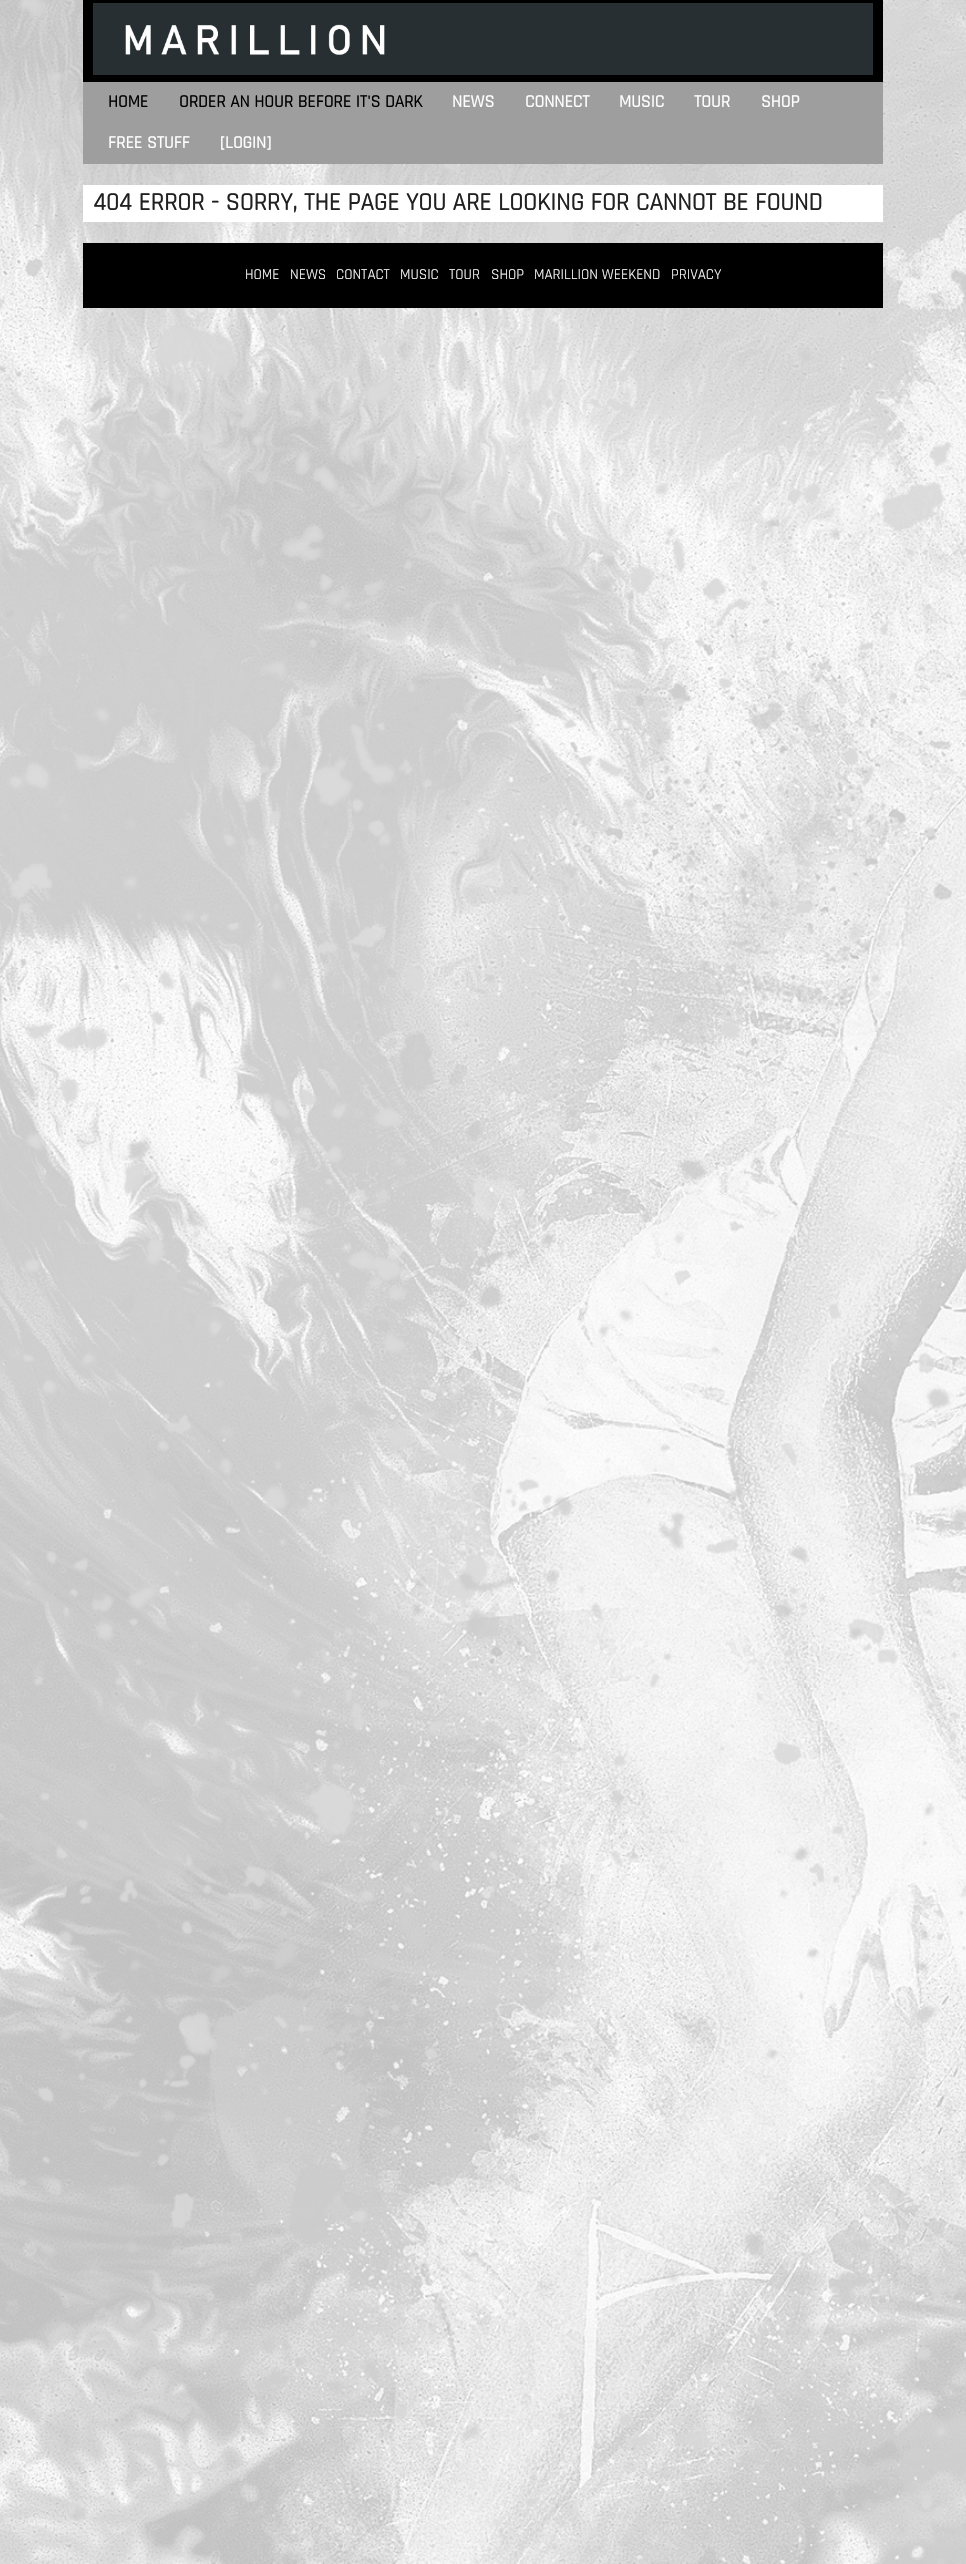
void draw(SkCanvas* canvas) {
	SkPaint fill;
	fill.setAntiAlias(true);
	auto makeFont = [&](const char* family, int weight, float size, bool italic = false) {
		SkFontStyle style(weight, SkFontStyle::kNormal_Width,
			italic ? SkFontStyle::kItalic_Slant : SkFontStyle::kUpright_Slant);
		SkFont result(fontMgr->matchFamilyStyle(family, style), size);
		result.setSubpixel(true);
		return result;
	};
	auto text = [&](const char* s, float x, float y, const SkFont& font) {
		canvas->drawString(s, x, y, font, fill);
	};
	auto box = [&](float l, float t, float r, float b) {
		canvas->drawRect(SkRect::MakeLTRB(l, t, r, b), fill);
	};
	auto picture = [&](const char* path, float l, float t, float r, float b) {
		auto image = SkImages::DeferredFromEncodedData(SkData::MakeFromFileName(path));
		canvas->drawImageRect(image, SkRect::MakeLTRB(l, t, r, b), SkSamplingOptions());
	};
	canvas->clear(0xFFFFFFFF);
	picture("image0.png", 0, 0, 966, 2564);
	fill.setColor(0xFF000000);
	box(83, 0, 883, 82);
	picture("image1.png", 93, 3, 873, 75);
	fill.setColor(0xFF9E9E9E);
	box(83, 82, 883, 164);
	fill.setColor(0xFFFFFFFF);
	box(83, 185, 883, 222);
	fill.setColor(0xFF000000);
	box(83, 243, 883, 308);
	auto font1 = makeFont("Rajdhani", 700, 17.5f);
	text("HOME", 108, 107, font1);
	text("ORDER AN HOUR BEFORE IT'S DARK", 179, 107, font1);
	fill.setColor(0xFFFFFFFF);
	text("NEWS", 452, 107, font1);
	text("CONNECT", 525, 107, font1);
	text("MUSIC", 619, 107, font1);
	text("TOUR", 694, 107, font1);
	text("SHOP", 761, 107, font1);
	text("FREE STUFF", 108, 148, font1);
	text("[LOGIN]", 220, 148, font1);
	auto font2 = makeFont("Rajdhani", 700, 25);
	fill.setColor(0xFF212121);
	text("404 ERROR - SORRY, THE PAGE YOU ARE LOOKING FOR CANNOT BE FOUND", 93, 210, font2);
	auto font3 = makeFont("Rajdhani", 400, 15);
	fill.setColor(0xFFFFFFFF);
	text("HOME", 245, 279, font3);
	text("NEWS", 290, 279, font3);
	text("CONTACT", 336, 279, font3);
	text("MUSIC", 400, 279, font3);
	text("TOUR", 449, 279, font3);
	text("SHOP", 491, 279, font3);
	text("MARILLION WEEKEND", 534, 279, font3);
	text("PRIVACY", 671, 279, font3);
}
